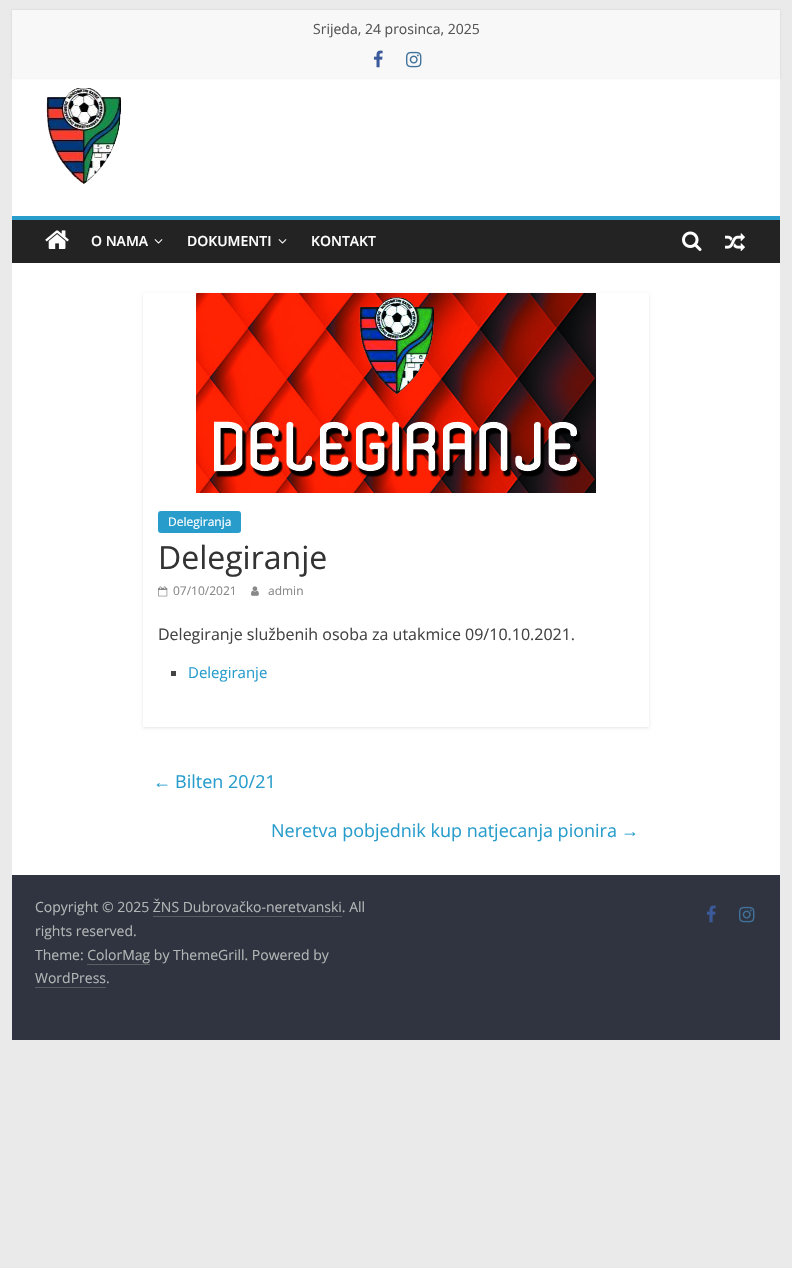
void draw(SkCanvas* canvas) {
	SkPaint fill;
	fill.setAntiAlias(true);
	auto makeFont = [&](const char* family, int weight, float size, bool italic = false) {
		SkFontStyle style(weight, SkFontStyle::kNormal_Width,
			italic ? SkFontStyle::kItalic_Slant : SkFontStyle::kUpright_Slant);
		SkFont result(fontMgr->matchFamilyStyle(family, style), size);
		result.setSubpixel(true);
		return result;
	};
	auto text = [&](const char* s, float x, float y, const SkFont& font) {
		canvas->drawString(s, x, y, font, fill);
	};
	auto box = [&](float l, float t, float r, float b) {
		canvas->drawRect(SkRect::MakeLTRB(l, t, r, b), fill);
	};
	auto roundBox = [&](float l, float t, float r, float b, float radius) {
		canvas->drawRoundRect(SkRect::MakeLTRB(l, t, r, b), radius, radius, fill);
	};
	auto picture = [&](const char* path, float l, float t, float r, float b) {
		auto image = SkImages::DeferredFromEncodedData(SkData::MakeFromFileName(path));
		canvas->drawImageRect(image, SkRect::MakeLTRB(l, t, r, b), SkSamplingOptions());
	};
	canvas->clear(0xFFEAEAEA);
	fill.setColor(0xFFFFFFFF);
	box(12, 78, 780, 216);
	fill.setColor(0x1A000000);
	fill.setMaskFilter(SkMaskFilter::MakeBlur(kNormal_SkBlurStyle, 1));
	canvas->drawRect(SkRect::MakeLTRB(12, 10, 780, 78), fill);
	fill.setMaskFilter(nullptr);
	fill.setColor(0xFFF8F8F8);
	box(12, 10, 780, 78);
	picture("image0.png", 373, 50, 383, 68);
	picture("image1.png", 406, 51, 422, 68);
	picture("image2.png", 46, 88, 121, 184);
	fill.setColor(0xFF232323);
	box(12, 220, 780, 263);
	fill.setColor(0xFF289DCC);
	box(12, 216, 780, 220);
	picture("image3.png", 45, 230, 69, 249);
	picture("image4.png", 154, 239, 163, 244);
	picture("image4.png", 278, 239, 287, 244);
	picture("image5.png", 682, 231, 702, 251);
	picture("image6.png", 725, 233, 745, 251);
	fill.setColor(0xFFFFFFFF);
	box(12, 263, 780, 875);
	canvas->save();
	canvas->clipPath(SkPathBuilder(SkPathFillType::kEvenOdd).moveTo(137, 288).lineTo(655, 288).lineTo(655, 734).lineTo(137, 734).close().moveTo(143, 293).lineTo(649, 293).lineTo(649, 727).lineTo(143, 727).close().detach(), true);
	fill.setColor(0x1A000000);
	fill.setMaskFilter(SkMaskFilter::MakeBlur(kNormal_SkBlurStyle, 1.5f));
	canvas->drawRect(SkRect::MakeLTRB(143, 294, 649, 728), fill);
	fill.setMaskFilter(nullptr);
	canvas->restore();
	picture("image7.png", 196, 293, 596, 493);
	fill.setColor(0xFF289DCC);
	roundBox(158, 511, 241, 533, 3);
	picture("image8.png", 158, 586, 168, 597);
	picture("image9.png", 251, 586, 259, 596);
	fill.setColor(0xFF444444);
	box(171, 671, 176, 676);
	fill.setColor(0xFF303440);
	box(12, 875, 780, 1040);
	fill.setColor(0xFF5A5D62);
	box(153, 916, 342, 917);
	box(87, 964, 150, 965);
	box(35, 987, 106, 988);
	picture("image10.png", 706, 905, 716, 923);
	picture("image11.png", 739, 906, 755, 923);
	auto font1 = makeFont("Open Sans", 400, 14);
	fill.setColor(0xFF555555);
	text("Srijeda, 24 prosinca, 2025", 313, 34, font1);
	auto font2 = makeFont("Open Sans", 600, 14);
	fill.setColor(0xFFFFFFFF);
	text("O NAMA", 91, 246, font2);
	text("DOKUMENTI", 187, 246, font2);
	text("KONTAKT", 311, 246, font2);
	auto font3 = makeFont("Open Sans", 400, 12);
	text("Delegiranja", 168, 526, font3);
	auto font4 = makeFont("Open Sans", 400, 32);
	fill.setColor(0xFF333333);
	text("Delegiranje", 158, 569, font4);
	fill.setColor(0xFF888888);
	text("07/10/2021", 173, 595, font3);
	text("admin", 268, 595, font3);
	auto font5 = makeFont("Open Sans", 400, 16);
	fill.setColor(0xFF444444);
	text("Delegiranje službenih osoba za utakmice 09/10.10.2021.", 158, 640, font5);
	auto font6 = makeFont("Open Sans", 400, 15);
	fill.setColor(0xFF289DCC);
	text("Delegiranje", 188, 678, font6);
	auto font7 = makeFont("Liberation Serif", 400, 18);
	text("←", 153, 788, font7);
	auto font8 = makeFont("Open Sans", 400, 18);
	text("Bilten 20/21", 175, 788, font8);
	text("Neretva pobjednik kup natjecanja pionira", 271, 837, font8);
	text("→", 621, 837, font7);
	fill.setColor(0xFFB1B6B6);
	text("Copyright © 2025 ŽNS Dubrovačko-neretvanski. All", 35, 912, font1);
	text("rights reserved.", 35, 936, font1);
	text("Theme: ColorMag by ThemeGrill. Powered by", 35, 960, font1);
	text("WordPress.", 35, 983, font1);
}
